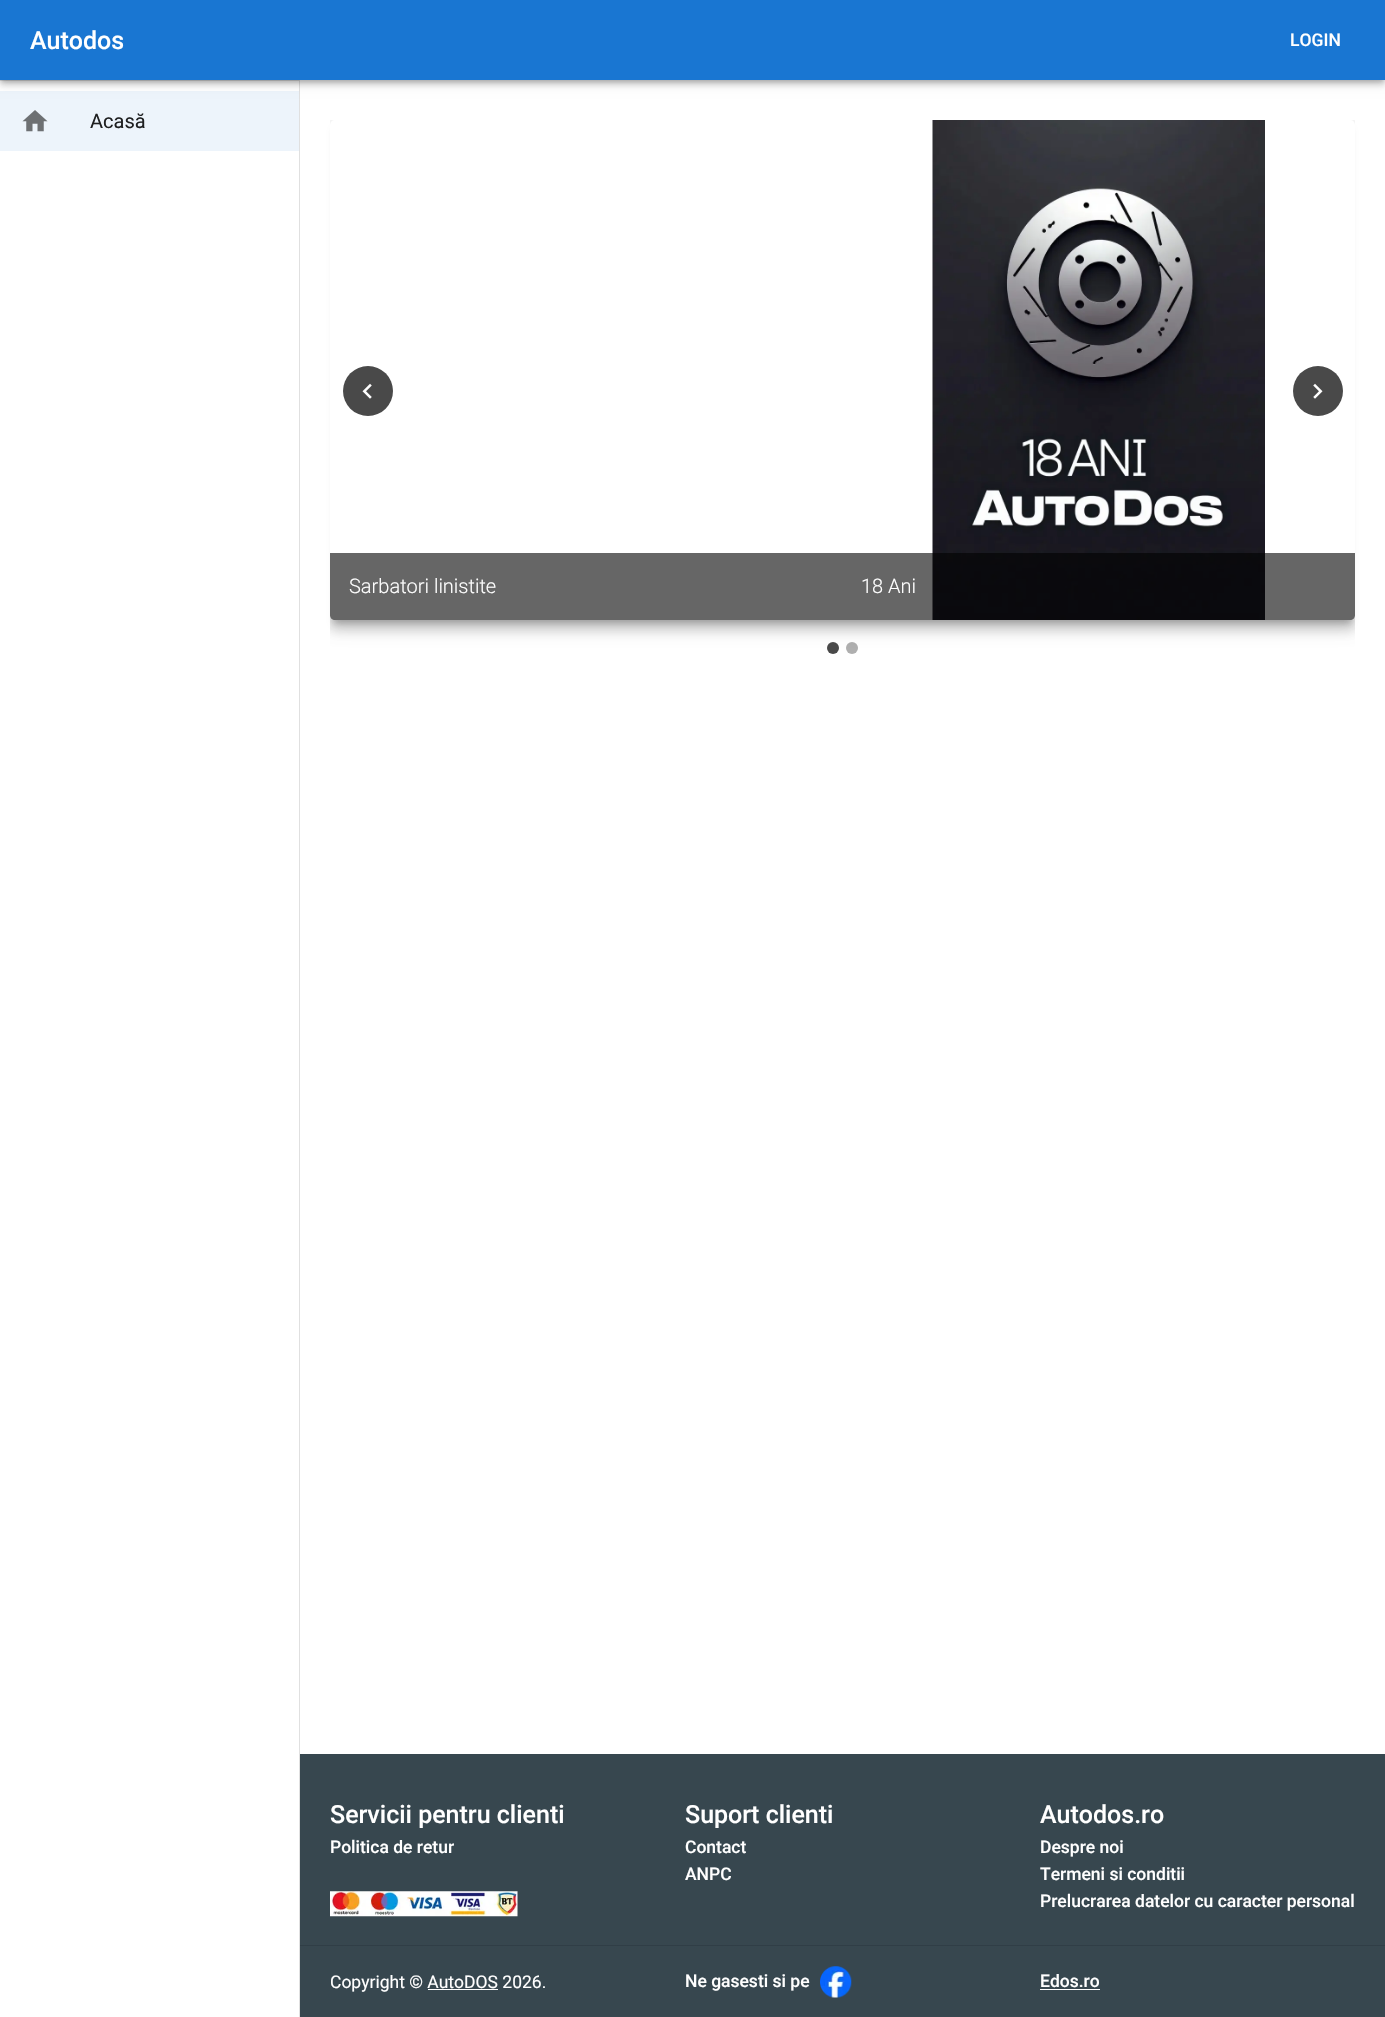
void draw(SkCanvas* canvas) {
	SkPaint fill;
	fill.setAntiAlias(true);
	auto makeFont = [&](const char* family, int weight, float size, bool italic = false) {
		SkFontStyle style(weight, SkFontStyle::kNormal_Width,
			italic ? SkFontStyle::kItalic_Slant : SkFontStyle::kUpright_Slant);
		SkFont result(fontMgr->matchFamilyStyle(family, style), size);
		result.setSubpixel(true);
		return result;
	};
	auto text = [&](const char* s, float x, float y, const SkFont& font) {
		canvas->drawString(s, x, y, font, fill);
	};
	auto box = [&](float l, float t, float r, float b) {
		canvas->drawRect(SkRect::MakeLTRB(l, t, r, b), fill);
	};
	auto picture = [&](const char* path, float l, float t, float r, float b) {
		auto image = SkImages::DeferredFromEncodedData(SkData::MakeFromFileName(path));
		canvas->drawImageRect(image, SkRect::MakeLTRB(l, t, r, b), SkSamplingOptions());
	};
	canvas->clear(0xFFFFFFFF);
	fill.setColor(0xFFE0E0E0);
	box(299, 80, 300, 2017);
	box(0, 80, 299, 81);
	fill.setColor(0xFFEDF4FB);
	box(0, 91, 299, 151);
	fill.setColor(0x1F000000);
	fill.setMaskFilter(SkMaskFilter::MakeBlur(kNormal_SkBlurStyle, 6));
	canvas->drawRect(SkRect::MakeLTRB(0, 1, 1385, 81), fill);
	fill.setMaskFilter(nullptr);
	fill.setColor(0x24000000);
	fill.setMaskFilter(SkMaskFilter::MakeBlur(kNormal_SkBlurStyle, 3));
	canvas->drawRect(SkRect::MakeLTRB(0, 5, 1385, 85), fill);
	fill.setMaskFilter(nullptr);
	fill.setColor(0x33000000);
	fill.setMaskFilter(SkMaskFilter::MakeBlur(kNormal_SkBlurStyle, 2.5f));
	canvas->drawRect(SkRect::MakeLTRB(1, 4, 1384, 81), fill);
	fill.setMaskFilter(nullptr);
	fill.setColor(0xFF1976D2);
	box(0, 0, 1385, 80);
	picture("image0.png", 22, 110, 48, 132);
	fill.setColor(0xFF494949);
	canvas->drawCircle(833, 648, 6, fill);
	fill.setColor(0xFFAFAFAF);
	canvas->drawCircle(852, 648, 6, fill);
	canvas->save();
	canvas->clipRect(SkRect::MakeLTRB(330, 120, 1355, 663));
	fill.setColor(0x1F000000);
	fill.setMaskFilter(SkMaskFilter::MakeBlur(kNormal_SkBlurStyle, 9));
	canvas->drawRoundRect(SkRect::MakeLTRB(328, 121, 1358, 626), 8, 8, fill);
	fill.setMaskFilter(nullptr);
	fill.setColor(0x24000000);
	fill.setMaskFilter(SkMaskFilter::MakeBlur(kNormal_SkBlurStyle, 6));
	canvas->drawRoundRect(SkRect::MakeLTRB(329, 129, 1356, 631), 6, 6, fill);
	fill.setMaskFilter(nullptr);
	canvas->restore();
	fill.setColor(0x33000000);
	fill.setMaskFilter(SkMaskFilter::MakeBlur(kNormal_SkBlurStyle, 3));
	canvas->drawRoundRect(SkRect::MakeLTRB(334, 130, 1351, 623), 1, 1, fill);
	fill.setMaskFilter(nullptr);
	fill.setColor(0xFFFFFFFF);
	canvas->drawPath(SkPathBuilder().moveTo(335, 120).lineTo(843, 120).lineTo(843, 620).lineTo(335, 620).cubicTo(332, 620, 330, 618, 330, 615).lineTo(330, 125).cubicTo(330, 122, 332, 120, 335, 120).close().detach(), fill);
	fill.setColor(0xFF494949);
	canvas->drawCircle(368, 391, 25, fill);
	picture("image1.png", 362, 383, 372, 399);
	fill.setColor(0xFFFFFFFF);
	canvas->drawPath(SkPathBuilder().moveTo(843, 120).lineTo(1350, 120).cubicTo(1353, 120, 1355, 122, 1355, 125).lineTo(1355, 615).cubicTo(1355, 618, 1353, 620, 1350, 620).lineTo(843, 620).close().detach(), fill);
	fill.setColor(0xFF494949);
	canvas->drawCircle(1318, 391, 25, fill);
	picture("image2.png", 1313, 383, 1323, 399);
	fill.setColor(0x99000000);
	canvas->drawPath(SkPathBuilder().moveTo(330, 553).lineTo(843, 553).lineTo(843, 620).lineTo(335, 620).cubicTo(332, 620, 330, 618, 330, 615).close().detach(), fill);
	picture("image3.png", 932, 120, 1265, 620);
	canvas->drawPath(SkPathBuilder().moveTo(843, 553).lineTo(1355, 553).lineTo(1355, 615).cubicTo(1355, 618, 1353, 620, 1350, 620).lineTo(843, 620).close().detach(), fill);
	fill.setColor(0xFF37474F);
	box(300, 1754, 1385, 2017);
	picture("image4.png", 330, 1891, 518, 1917);
	fill.setColor(0xFF303E46);
	box(300, 1945, 1385, 1946);
	fill.setColor(0xFFFFFFFF);
	box(428, 1989, 498, 1990);
	picture("image5.png", 820, 1966, 852, 1998);
	box(1040, 1989, 1100, 1990);
	auto font1 = makeFont("Roboto", 500, 25);
	text("Autodos", 30, 49, font1);
	auto font2 = makeFont("Roboto", 500, 17.5f);
	text("LOGIN", 1290, 46, font2);
	auto font3 = makeFont("Roboto", 400, 20);
	fill.setColor(0xFF1F2021);
	text("Acasă", 90, 128, font3);
	auto font4 = makeFont("Roboto", 300, 20);
	fill.setColor(0xFFFFFFFF);
	text("Sarbatori linistite", 349, 593, font4);
	text("18 Ani", 861, 593, font4);
	text("Servicii pentru clienti", 330, 1823, font1);
	text("Politica de retur", 330, 1853, font2);
	text("Suport clienti", 685, 1823, font1);
	text("Contact", 685, 1853, font2);
	text("ANPC", 685, 1880, font2);
	text("Autodos.ro", 1040, 1823, font1);
	text("Despre noi", 1040, 1853, font2);
	text("Termeni si conditii", 1040, 1880, font2);
	text("Prelucrarea datelor cu caracter personal", 1040, 1907, font2);
	auto font5 = makeFont("Roboto", 400, 17.5f);
	text("Copyright © AutoDOS 2026.", 330, 1988, font5);
	text("Ne gasesti si pe", 685, 1987, font2);
	text("Edos.ro", 1040, 1987, font2);
}
